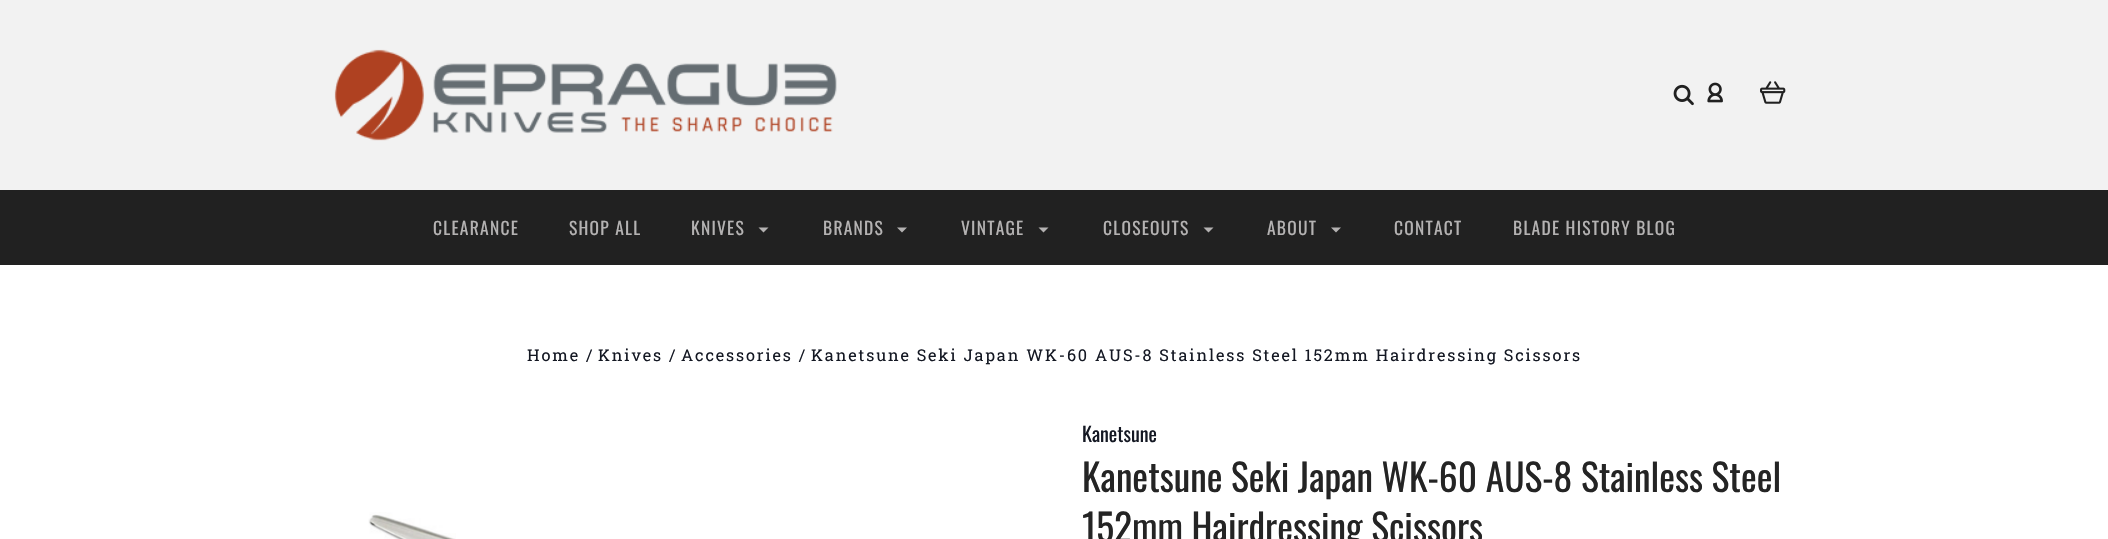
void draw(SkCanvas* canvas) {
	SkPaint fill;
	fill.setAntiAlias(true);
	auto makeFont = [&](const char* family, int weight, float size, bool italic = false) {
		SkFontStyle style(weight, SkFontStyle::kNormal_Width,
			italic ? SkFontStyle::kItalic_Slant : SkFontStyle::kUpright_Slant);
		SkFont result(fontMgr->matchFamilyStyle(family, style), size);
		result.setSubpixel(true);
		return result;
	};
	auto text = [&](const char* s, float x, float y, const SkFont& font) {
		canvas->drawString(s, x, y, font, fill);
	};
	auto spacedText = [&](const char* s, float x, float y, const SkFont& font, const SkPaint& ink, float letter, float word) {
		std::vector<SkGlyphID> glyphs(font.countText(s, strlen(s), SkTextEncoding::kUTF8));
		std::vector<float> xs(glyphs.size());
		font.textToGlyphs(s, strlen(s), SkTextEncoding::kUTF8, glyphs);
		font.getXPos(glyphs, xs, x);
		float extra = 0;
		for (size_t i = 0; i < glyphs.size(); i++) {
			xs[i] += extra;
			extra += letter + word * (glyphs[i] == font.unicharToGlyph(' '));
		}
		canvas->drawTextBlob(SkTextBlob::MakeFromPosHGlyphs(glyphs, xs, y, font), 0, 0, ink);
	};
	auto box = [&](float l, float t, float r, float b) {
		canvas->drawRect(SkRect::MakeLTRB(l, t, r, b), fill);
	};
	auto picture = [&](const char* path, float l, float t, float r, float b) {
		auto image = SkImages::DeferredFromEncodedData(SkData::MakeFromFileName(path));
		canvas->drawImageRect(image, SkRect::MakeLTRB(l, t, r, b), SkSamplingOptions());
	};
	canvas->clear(0xFFFFFFFF);
	fill.setColor(0xFFF2F2F2);
	box(0, 0, 2108, 190);
	picture("image0.png", 334, 49, 837, 141);
	picture("image1.png", 1673, 84, 1694, 106);
	picture("image2.png", 1707, 82, 1723, 103);
	picture("image3.png", 1760, 81, 1786, 104);
	fill.setColor(0xFF212121);
	box(0, 190, 2108, 265);
	fill.setColor(0xFFB4B2B2);
	canvas->drawPath(SkPathBuilder().moveTo(758.5f, 227.5f).lineTo(768.5f, 227.5f).lineTo(763.5f, 232.5f).close().detach(), fill);
	canvas->drawPath(SkPathBuilder().moveTo(897, 227.5f).lineTo(907, 227.5f).lineTo(902, 232.5f).close().detach(), fill);
	canvas->drawPath(SkPathBuilder().moveTo(1038.5f, 227.5f).lineTo(1048.5f, 227.5f).lineTo(1043.5f, 232.5f).close().detach(), fill);
	canvas->drawPath(SkPathBuilder().moveTo(1203.5f, 227.5f).lineTo(1213.5f, 227.5f).lineTo(1208.5f, 232.5f).close().detach(), fill);
	canvas->drawPath(SkPathBuilder().moveTo(1331, 227.5f).lineTo(1341, 227.5f).lineTo(1336, 232.5f).close().detach(), fill);
	picture("image4.png", 368, 512, 456, 539);
	auto font1 = makeFont("Oswald", 400, 17.5f);
	spacedText("CLEARANCE", 433, 235, font1, fill, 1.25f, 0);
	spacedText("SHOP ALL", 569, 235, font1, fill, 1.25f, 0);
	spacedText("KNIVES", 691, 235, font1, fill, 1.25f, 0);
	spacedText("BRANDS", 823, 235, font1, fill, 1.25f, 0);
	spacedText("VINTAGE", 961, 235, font1, fill, 1.25f, 0);
	spacedText("CLOSEOUTS", 1103, 235, font1, fill, 1.25f, 0);
	spacedText("ABOUT", 1267, 235, font1, fill, 1.25f, 0);
	spacedText("CONTACT", 1394, 235, font1, fill, 1.25f, 0);
	spacedText("BLADE HISTORY BLOG", 1513, 235, font1, fill, 1.25f, 0);
	auto font2 = makeFont("Roboto Slab", 400, 16.25f);
	fill.setColor(0xFF141823);
	spacedText("Home /", 527, 361, font2, fill, 1.88f, 0);
	spacedText("Knives /", 598, 361, font2, fill, 1.88f, 0);
	spacedText("Accessories /", 681, 361, font2, fill, 1.88f, 0);
	spacedText("Kanetsune Seki Japan WK-60 AUS-8 Stainless Steel 152mm Hairdressing Scissors", 811, 361, font2, fill, 1.88f, 0);
	auto font3 = makeFont("Oswald", 400, 20);
	text("Kanetsune", 1082, 442, font3);
	auto font4 = makeFont("Oswald", 400, 37.5f);
	fill.setColor(0xFF242424);
	text("Kanetsune Seki Japan WK-60 AUS-8 Stainless Steel", 1082, 492, font4);
	text("152mm Hairdressing Scissors", 1082, 542, font4);
}
